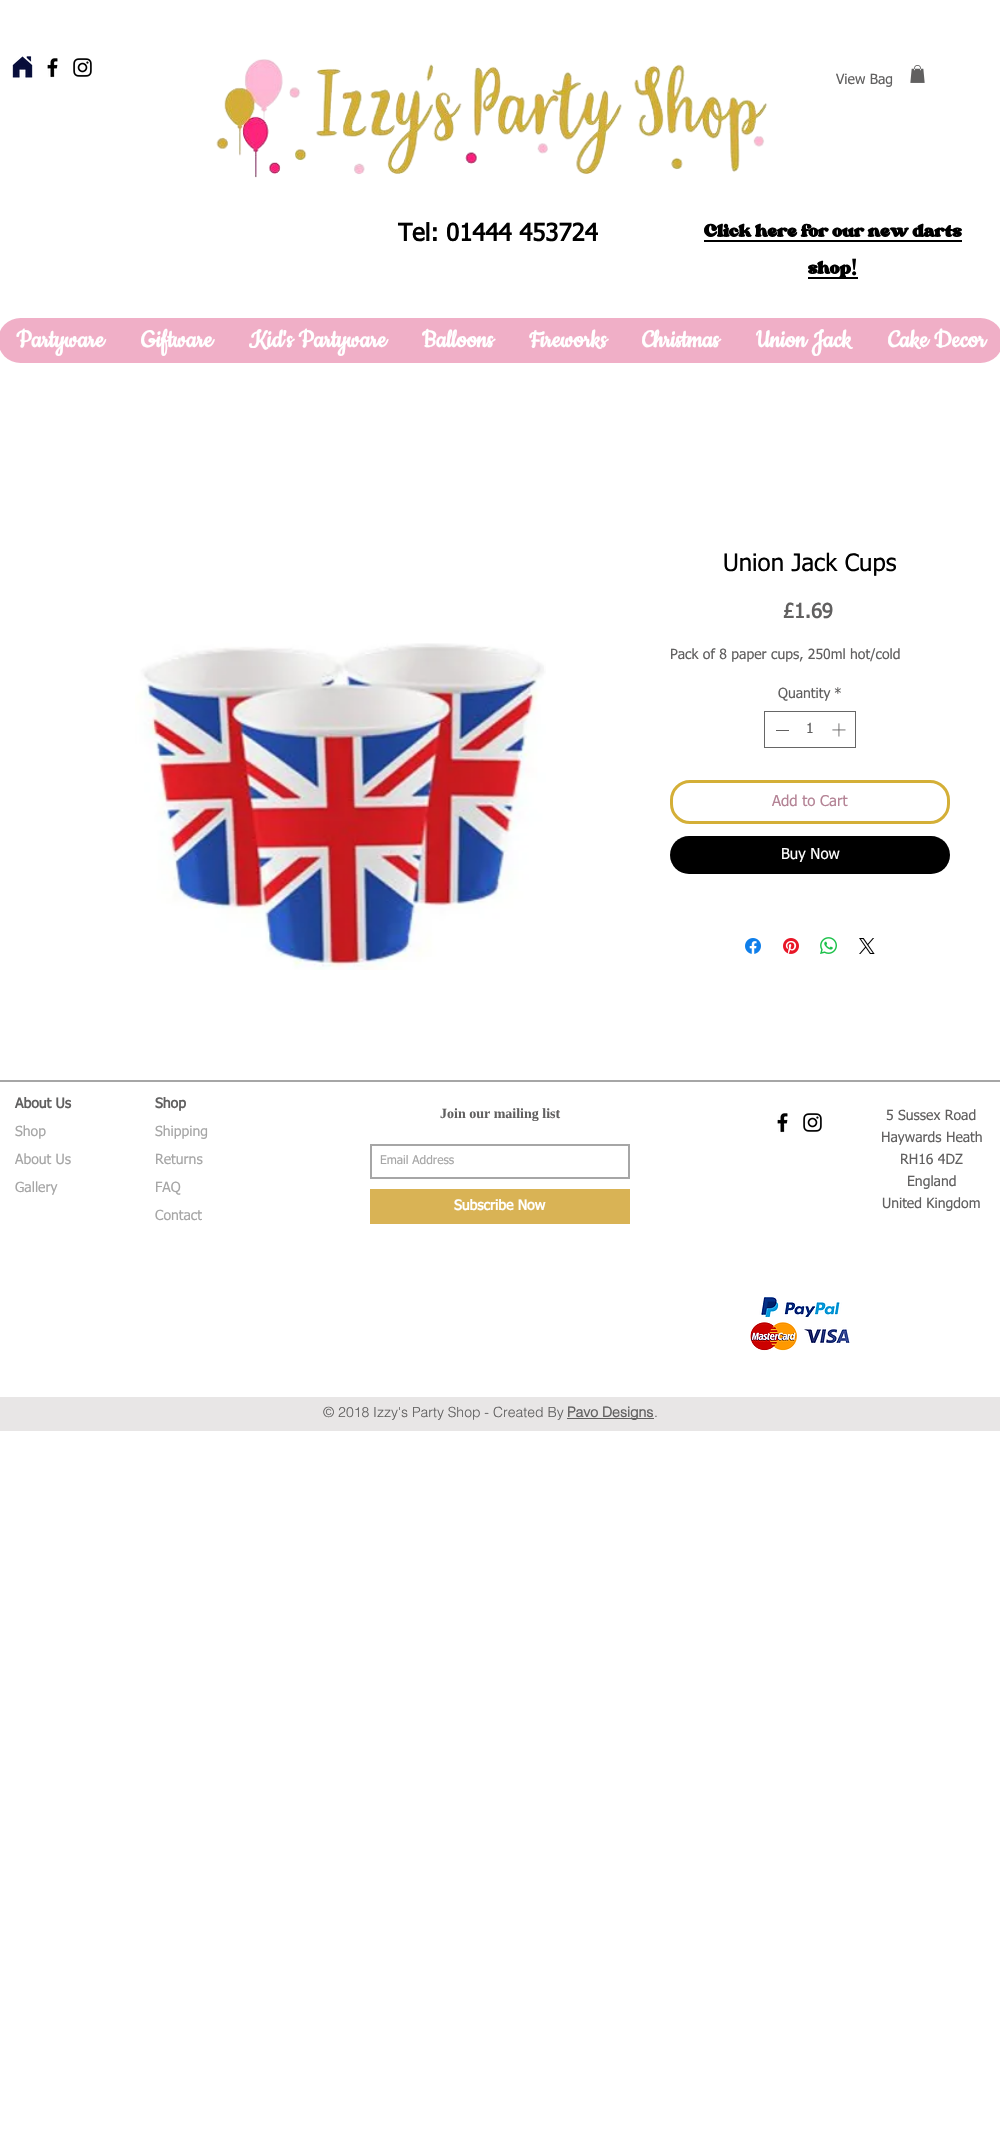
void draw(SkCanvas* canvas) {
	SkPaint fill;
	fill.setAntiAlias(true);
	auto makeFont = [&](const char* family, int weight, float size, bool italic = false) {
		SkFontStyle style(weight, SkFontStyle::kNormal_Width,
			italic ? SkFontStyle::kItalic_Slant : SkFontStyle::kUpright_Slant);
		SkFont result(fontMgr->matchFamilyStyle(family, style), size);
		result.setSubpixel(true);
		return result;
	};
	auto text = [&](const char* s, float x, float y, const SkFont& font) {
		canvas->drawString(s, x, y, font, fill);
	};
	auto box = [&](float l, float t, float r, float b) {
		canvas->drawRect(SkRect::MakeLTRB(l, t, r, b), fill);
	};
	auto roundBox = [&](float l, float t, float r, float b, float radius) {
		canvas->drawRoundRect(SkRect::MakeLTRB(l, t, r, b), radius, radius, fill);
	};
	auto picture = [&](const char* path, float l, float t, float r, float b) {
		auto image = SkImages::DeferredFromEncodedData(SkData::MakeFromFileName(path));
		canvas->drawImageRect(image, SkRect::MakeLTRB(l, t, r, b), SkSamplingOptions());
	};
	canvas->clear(0xFFFFFFFF);
	picture("image0.png", 12, 56, 33, 78);
	picture("image1.png", 47, 58, 58, 78);
	picture("image2.png", 73, 58, 92, 77);
	picture("image3.png", 216, 59, 768, 178);
	picture("image4.png", 910, 65, 925, 83);
	fill.setColor(0xFF000000);
	box(704, 240, 962, 242);
	box(808, 277, 858, 279);
	fill.setColor(0xFFF0AFC7);
	roundBox(-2, 318, 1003, 363, 22.5f);
	picture("image5.png", 135, 643, 546, 970);
	fill.setStyle(SkPaint::kStroke_Style);
	fill.setStrokeWidth(1);
	fill.setColor(0xFF666666);
	canvas->drawRect(SkRect::MakeLTRB(764.5f, 711.5f, 855.5f, 747.5f), fill);
	fill.setStyle(SkPaint::kFill_Style);
	fill.setColor(0xFF616060);
	box(776, 730, 789, 731);
	picture("image6.png", 832, 723, 846, 737);
	fill.setStyle(SkPaint::kStroke_Style);
	fill.setStrokeWidth(3);
	fill.setColor(0xFFD4AF37);
	canvas->drawRoundRect(SkRect::MakeLTRB(671.5f, 781.5f, 948.5f, 822.5f), 18.5f, 18.5f, fill);
	fill.setStyle(SkPaint::kFill_Style);
	fill.setColor(0xFF000000);
	roundBox(670, 836, 950, 874, 19);
	picture("image7.png", 745, 938, 761, 954);
	picture("image8.png", 783, 938, 799, 954);
	picture("image9.png", 820, 937, 837, 954);
	picture("image10.png", 859, 938, 875, 954);
	fill.setColor(0xFFA6A6A6);
	box(0, 1080, 1000, 1082);
	fill.setStyle(SkPaint::kStroke_Style);
	fill.setStrokeWidth(2);
	canvas->drawRect(SkRect::MakeLTRB(371, 1145, 629, 1178), fill);
	fill.setStyle(SkPaint::kFill_Style);
	fill.setColor(0xFFD9B355);
	box(370, 1189, 630, 1224);
	picture("image1.png", 777, 1113, 788, 1133);
	picture("image2.png", 803, 1113, 822, 1132);
	picture("image11.png", 750, 1297, 850, 1351);
	fill.setColor(0xFFE8E6E6);
	box(0, 1397, 1000, 1431);
	fill.setColor(0xFF616060);
	box(567, 1418, 654, 1419);
	auto font1 = makeFont("tahoma", 400, 14);
	text("View Bag", 836, 84, font1);
	auto font2 = makeFont("tahoma", 700, 24);
	fill.setColor(0xFF000000);
	text("Tel: 01444 453724", 398, 241, font2);
	auto font3 = makeFont("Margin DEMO", 700, 25);
	text("Click here for our new darts", 704, 238, font3);
	text("shop", 808, 275, font3);
	auto font4 = makeFont("Liberation Serif", 700, 25);
	text("!", 850, 275, font4);
	auto font5 = makeFont("Cookie", 700, 28);
	fill.setColor(0xFFFFFFFF);
	text("Partyware", 16, 347, font5);
	text("Giftware", 141, 347, font5);
	text("Kid's Partyware", 249, 347, font5);
	text("Balloons", 422, 347, font5);
	text("Fireworks", 529, 347, font5);
	text("Christmas", 642, 347, font5);
	text("Union Jack", 756, 347, font5);
	text("Cake Decor", 888, 347, font5);
	auto font6 = makeFont("tahoma", 400, 24);
	fill.setColor(0xFF000000);
	text("Union Jack Cups", 723, 571, font6);
	auto font7 = makeFont("tahoma", 700, 20);
	fill.setColor(0xFF616060);
	text("£1.69", 783, 618, font7);
	text("Pack of 8 paper cups, 250ml hot/cold", 670, 659, font1);
	text("Quantity", 778, 698, font1);
	text("*", 834, 698, font1);
	text("1", 806, 733, font1);
	auto font8 = makeFont("tahoma", 400, 15);
	fill.setColor(0xFFB48395);
	text("Add to Cart", 772, 806, font8);
	fill.setColor(0xFFFFFFFF);
	text("Buy Now", 781, 859, font8);
	auto font9 = makeFont("tahoma", 700, 14);
	fill.setColor(0xFF616060);
	text("About Us", 15, 1108, font9);
	fill.setColor(0xFFA6A6A6);
	text("Shop", 15, 1136, font1);
	text("About Us", 15, 1164, font1);
	text("Gallery", 15, 1192, font1);
	fill.setColor(0xFF616060);
	text("Shop", 155, 1108, font9);
	fill.setColor(0xFFA6A6A6);
	text("Shipping", 155, 1136, font1);
	text("Returns", 155, 1164, font1);
	text("FAQ", 155, 1192, font1);
	text("Contact", 155, 1220, font1);
	auto font10 = makeFont("Liberation Serif", 700, 14);
	fill.setColor(0xFF616060);
	text("Join our mailing list", 440, 1118, font10);
	auto font11 = makeFont("tahoma", 400, 12);
	fill.setColor(0xFFA6A6A6);
	text("Email Address", 380, 1164, font11);
	fill.setColor(0xFFFFFFFF);
	text("Subscribe Now", 454, 1210, font9);
	fill.setColor(0xFF616060);
	text("5 Sussex Road", 886, 1120, font1);
	text("Haywards Heath", 881, 1142, font1);
	text("RH16 4DZ", 900, 1164, font1);
	text("England", 907, 1186, font1);
	text("United Kingdom", 882, 1208, font1);
	auto font12 = makeFont("helvetica", 300, 14);
	text("© 2018 Izzy's Party Shop - Created By", 323, 1417, font12);
	auto font13 = makeFont("helvetica", 700, 14);
	text("Pavo Designs", 567, 1417, font13);
	text(".", 654, 1417, font12);
}
